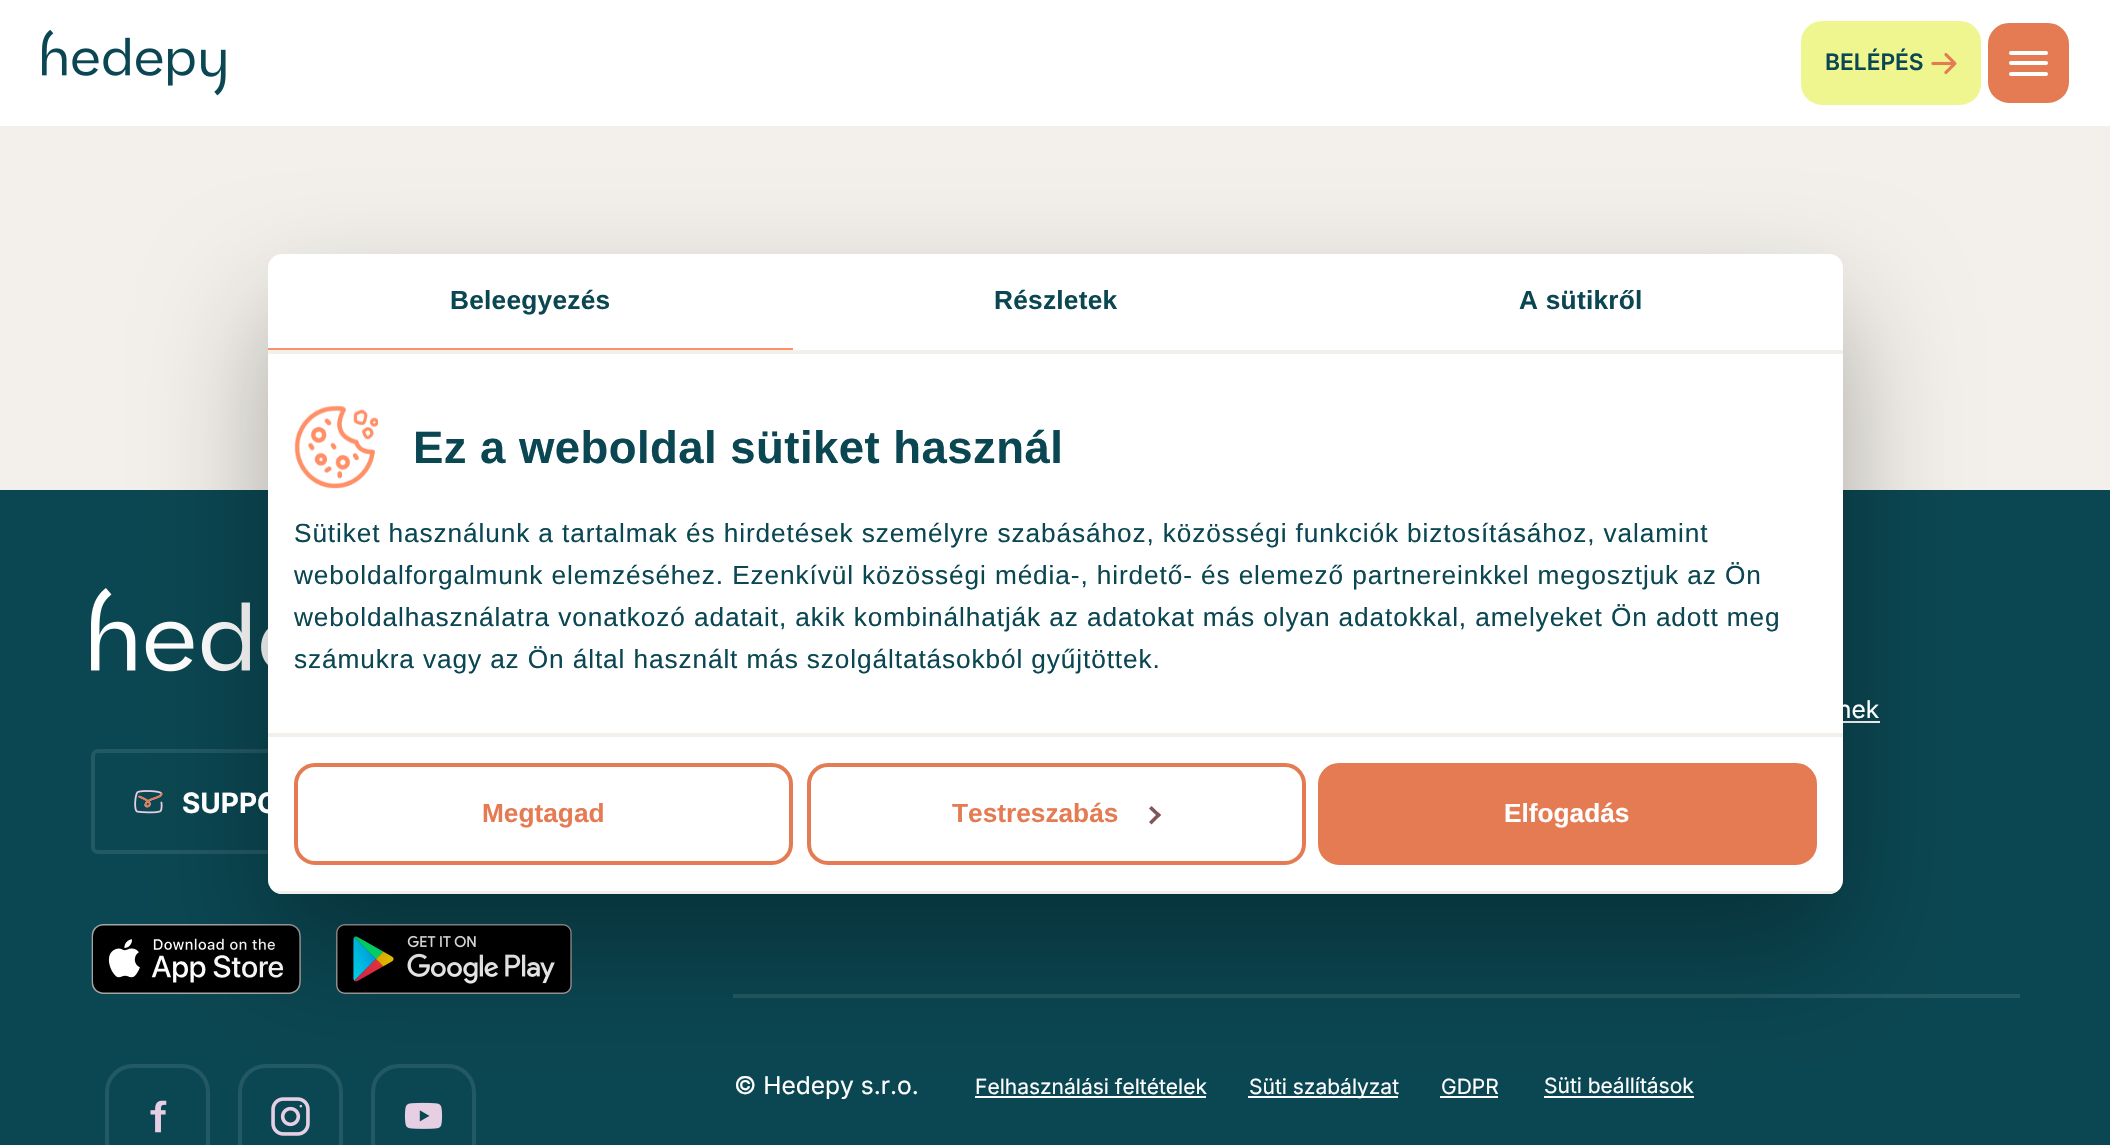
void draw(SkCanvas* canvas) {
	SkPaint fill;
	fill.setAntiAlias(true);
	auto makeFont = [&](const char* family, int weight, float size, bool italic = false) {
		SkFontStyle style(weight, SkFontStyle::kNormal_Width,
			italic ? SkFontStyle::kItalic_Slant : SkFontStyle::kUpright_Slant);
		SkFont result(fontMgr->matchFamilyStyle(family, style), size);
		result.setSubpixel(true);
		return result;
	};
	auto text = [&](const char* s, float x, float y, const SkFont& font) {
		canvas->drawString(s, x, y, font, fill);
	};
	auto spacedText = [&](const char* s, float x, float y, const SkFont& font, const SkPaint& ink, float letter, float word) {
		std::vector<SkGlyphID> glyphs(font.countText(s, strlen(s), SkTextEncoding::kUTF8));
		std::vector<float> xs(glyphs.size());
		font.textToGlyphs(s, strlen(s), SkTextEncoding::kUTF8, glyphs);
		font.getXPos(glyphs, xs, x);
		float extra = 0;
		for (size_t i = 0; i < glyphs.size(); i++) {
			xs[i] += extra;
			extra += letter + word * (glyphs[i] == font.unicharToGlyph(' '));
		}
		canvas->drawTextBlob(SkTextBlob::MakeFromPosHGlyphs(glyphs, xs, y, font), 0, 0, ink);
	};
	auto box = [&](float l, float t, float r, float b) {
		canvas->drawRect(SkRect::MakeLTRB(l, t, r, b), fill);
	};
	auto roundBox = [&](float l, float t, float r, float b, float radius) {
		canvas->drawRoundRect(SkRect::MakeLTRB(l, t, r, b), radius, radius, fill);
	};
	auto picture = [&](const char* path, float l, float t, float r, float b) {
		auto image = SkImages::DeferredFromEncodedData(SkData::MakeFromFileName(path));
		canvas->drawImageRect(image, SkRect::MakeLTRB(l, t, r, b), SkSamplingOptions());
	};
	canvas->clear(0xFFF3F0EB);
	fill.setColor(0xFFFFFFFF);
	box(0, 0, 2110, 126);
	picture("image0.png", 42, 30, 226, 96);
	fill.setColor(0xFFEFF690);
	canvas->drawRoundRect(SkRect::MakeLTRB(1803, 23, 1979, 103), 19, 19, fill);
	fill.setStyle(SkPaint::kStroke_Style);
	fill.setStrokeWidth(4);
	canvas->drawRoundRect(SkRect::MakeLTRB(1803, 23, 1979, 103), 19, 19, fill);
	picture("image1.png", 1931, 53, 1957, 75);
	fill.setStyle(SkPaint::kFill_Style);
	fill.setColor(0xFFE47B53);
	canvas->drawRoundRect(SkRect::MakeLTRB(1990, 25, 2067, 101), 19, 19, fill);
	fill.setStyle(SkPaint::kStroke_Style);
	canvas->drawRoundRect(SkRect::MakeLTRB(1990, 25, 2067, 101), 19, 19, fill);
	fill.setStyle(SkPaint::kFill_Style);
	fill.setColor(0xFFFFFFFF);
	roundBox(2009, 51, 2048, 55, 2);
	roundBox(2009, 61, 2048, 65, 2);
	roundBox(2009, 72, 2048, 76, 2);
	fill.setColor(0xFF0B4752);
	box(0, 490, 2110, 1145);
	picture("image2.png", 91, 588, 268, 672);
	fill.setStyle(SkPaint::kStroke_Style);
	fill.setColor(0xFF235963);
	canvas->drawRoundRect(SkRect::MakeLTRB(93, 751, 661, 852), 5, 5, fill);
	picture("image3.png", 134, 790, 163, 814);
	picture("image4.png", 91, 924, 301, 994);
	picture("image5.png", 336, 924, 572, 994);
	canvas->drawRoundRect(SkRect::MakeLTRB(107, 1066, 208, 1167), 26, 26, fill);
	picture("image6.png", 150, 1100, 167, 1133);
	canvas->drawRoundRect(SkRect::MakeLTRB(240, 1066, 341, 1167), 26, 26, fill);
	picture("image7.png", 271, 1097, 310, 1136);
	canvas->drawRoundRect(SkRect::MakeLTRB(373, 1066, 474, 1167), 26, 26, fill);
	picture("image8.png", 404, 1102, 443, 1129);
	fill.setStyle(SkPaint::kFill_Style);
	fill.setColor(0xFFFFFFFF);
	box(1843, 721, 1880, 723);
	fill.setColor(0xFF235963);
	box(733, 994, 2020, 998);
	fill.setColor(0xFFFFFFFF);
	box(975, 1096, 1206, 1098);
	box(1248, 1096, 1398, 1098);
	box(1440, 1096, 1498, 1098);
	box(1544, 1096, 1694, 1098);
	fill.setColor(0x4D000000);
	fill.setMaskFilter(SkMaskFilter::MakeBlur(kNormal_SkBlurStyle, 59.5f));
	canvas->drawRoundRect(SkRect::MakeLTRB(268, 310, 1843, 950), 14, 14, fill);
	fill.setMaskFilter(nullptr);
	fill.setColor(0xFFFFFFFF);
	roundBox(268, 254, 1843, 894, 14);
	fill.setColor(0xFFF3F0EB);
	box(268, 350, 1843, 354);
	fill.setColor(0xFFFF8F67);
	box(268, 348, 793, 350);
	fill.setColor(0xFFF3F0EB);
	box(268, 733, 1843, 737);
	picture("image9.png", 294, 405, 378, 489);
	canvas->save();
	canvas->clipPath(SkPathBuilder().moveTo(282, 254).lineTo(1829, 254).cubicTo(1836.5f, 254, 1843, 260.5f, 1843, 268).lineTo(1843, 880).cubicTo(1843, 887.5f, 1836.5f, 894, 1829, 894).lineTo(282, 894).cubicTo(274.5f, 894, 268, 887.5f, 268, 880).lineTo(268, 268).cubicTo(268, 260.5f, 274.5f, 254, 282, 254).close().detach(), true);
	box(268, 891, 1843, 894);
	canvas->restore();
	fill.setStyle(SkPaint::kStroke_Style);
	fill.setColor(0xFFE47B53);
	canvas->drawRoundRect(SkRect::MakeLTRB(296, 765, 791, 863), 19, 19, fill);
	canvas->drawRoundRect(SkRect::MakeLTRB(809, 765, 1304, 863), 19, 19, fill);
	fill.setStyle(SkPaint::kFill_Style);
	fill.setColor(0xFF82555C);
	canvas->drawPath(SkPathBuilder().moveTo(1151.5f, 806).lineTo(1161, 815).lineTo(1158.5f, 817.5f).lineTo(1149, 808.5f).close().detach(), fill);
	canvas->drawPath(SkPathBuilder().moveTo(1158.5f, 812.5f).lineTo(1161, 815).lineTo(1151.5f, 824.5f).lineTo(1149, 822).close().detach(), fill);
	fill.setColor(0xFFE47B53);
	canvas->drawRoundRect(SkRect::MakeLTRB(1320, 765, 1815, 863), 19, 19, fill);
	fill.setStyle(SkPaint::kStroke_Style);
	canvas->drawRoundRect(SkRect::MakeLTRB(1320, 765, 1815, 863), 19, 19, fill);
	auto font1 = makeFont("Inter", 600, 22.75f);
	fill.setStyle(SkPaint::kFill_Style);
	fill.setColor(0xFF0B4752);
	text("BELÉPÉS", 1825, 70, font1);
	auto font2 = makeFont("Inter", 700, 28);
	fill.setColor(0xFFFFFFFF);
	text("SUPPO", 182, 813, font2);
	auto font3 = makeFont("Inter", 400, 24.5f);
	text("nek", 1837, 718, font3);
	text("© Hedepy s.r.o.", 734, 1094, font3);
	auto font4 = makeFont("Inter", 400, 21);
	text("Felhasználási feltételek", 975, 1094, font4);
	text("Süti szabályzat", 1249, 1094, font4);
	text("GDPR", 1441, 1094, font4);
	text("Süti beállítások", 1544, 1093, font4);
	auto font5 = makeFont("Liberation Sans", 700, 26.25f);
	fill.setColor(0xFF0B4752);
	spacedText("Beleegyezés", 450, 309, font5, fill, 0.25f, 0);
	spacedText("Részletek", 994, 309, font5, fill, 0.25f, 0);
	spacedText("A sütikről", 1519, 309, font5, fill, 0.25f, 0);
	auto font6 = makeFont("Liberation Sans", 700, 45.5f);
	spacedText("Ez a weboldal sütiket használ", 413, 463, font6, fill, 0.45f, 0);
	auto font7 = makeFont("Liberation Sans", 400, 26.25f);
	spacedText("Sütiket használunk a tartalmak és hirdetések személyre szabásához, közösségi funkciók biztosításához, valamint", 294, 542, font7, fill, 0.88f, 0);
	spacedText("weboldalforgalmunk elemzéséhez. Ezenkívül közösségi média-, hirdető- és elemező partnereinkkel megosztjuk az Ön", 294, 584, font7, fill, 0.88f, 0);
	spacedText("weboldalhasználatra vonatkozó adatait, akik kombinálhatják az adatokat más olyan adatokkal, amelyeket Ön adott meg", 294, 626, font7, fill, 0.88f, 0);
	spacedText("számukra vagy az Ön által használt más szolgáltatásokból gyűjtöttek.", 294, 668, font7, fill, 0.88f, 0);
	fill.setColor(0xFFE47B53);
	text("Megtagad", 482, 822, font5);
	text("Testreszabás", 952, 822, font5);
	fill.setColor(0xFFFFFFFF);
	text("Elfogadás", 1504, 822, font5);
}
